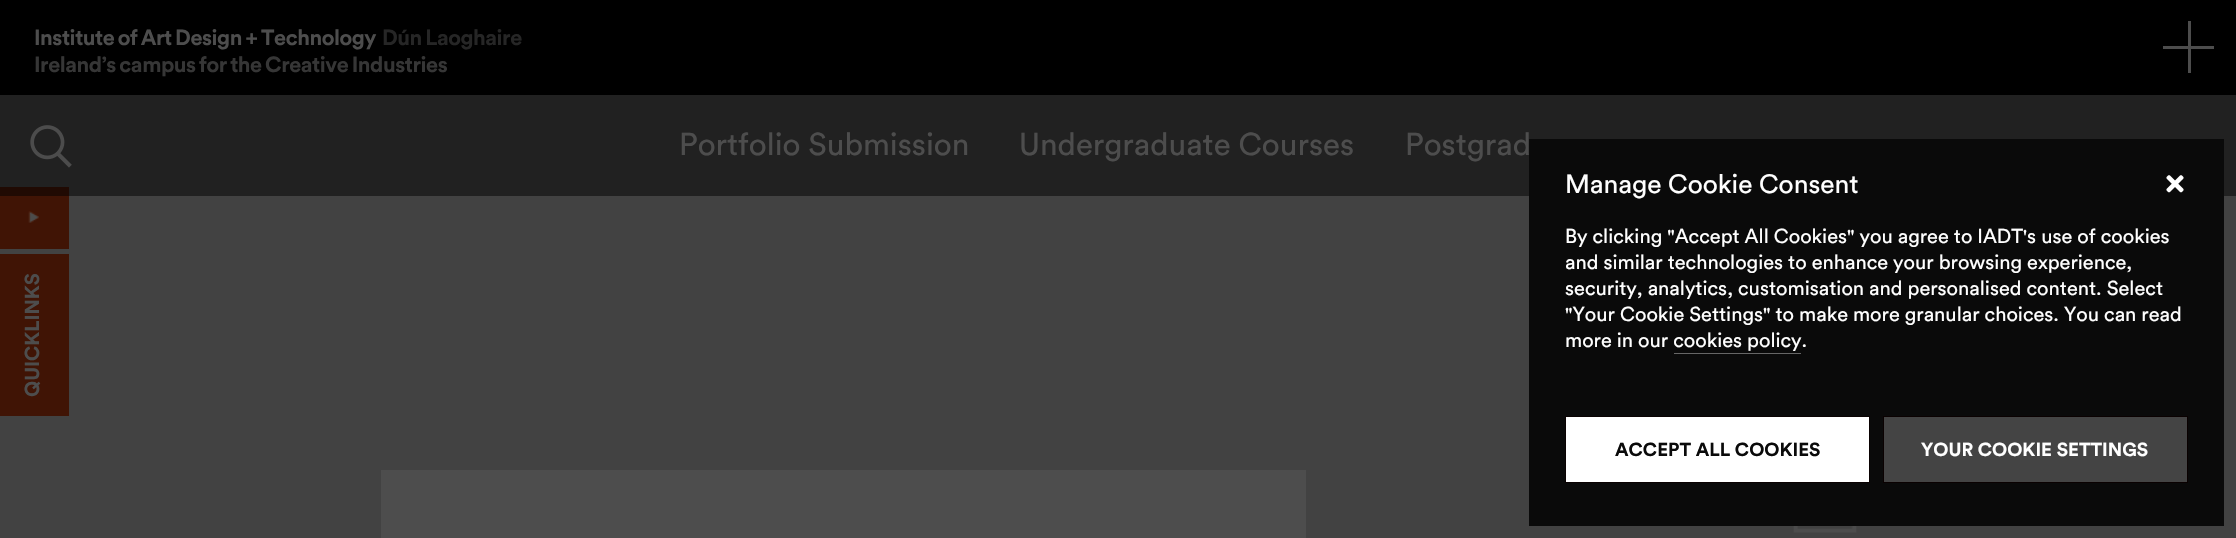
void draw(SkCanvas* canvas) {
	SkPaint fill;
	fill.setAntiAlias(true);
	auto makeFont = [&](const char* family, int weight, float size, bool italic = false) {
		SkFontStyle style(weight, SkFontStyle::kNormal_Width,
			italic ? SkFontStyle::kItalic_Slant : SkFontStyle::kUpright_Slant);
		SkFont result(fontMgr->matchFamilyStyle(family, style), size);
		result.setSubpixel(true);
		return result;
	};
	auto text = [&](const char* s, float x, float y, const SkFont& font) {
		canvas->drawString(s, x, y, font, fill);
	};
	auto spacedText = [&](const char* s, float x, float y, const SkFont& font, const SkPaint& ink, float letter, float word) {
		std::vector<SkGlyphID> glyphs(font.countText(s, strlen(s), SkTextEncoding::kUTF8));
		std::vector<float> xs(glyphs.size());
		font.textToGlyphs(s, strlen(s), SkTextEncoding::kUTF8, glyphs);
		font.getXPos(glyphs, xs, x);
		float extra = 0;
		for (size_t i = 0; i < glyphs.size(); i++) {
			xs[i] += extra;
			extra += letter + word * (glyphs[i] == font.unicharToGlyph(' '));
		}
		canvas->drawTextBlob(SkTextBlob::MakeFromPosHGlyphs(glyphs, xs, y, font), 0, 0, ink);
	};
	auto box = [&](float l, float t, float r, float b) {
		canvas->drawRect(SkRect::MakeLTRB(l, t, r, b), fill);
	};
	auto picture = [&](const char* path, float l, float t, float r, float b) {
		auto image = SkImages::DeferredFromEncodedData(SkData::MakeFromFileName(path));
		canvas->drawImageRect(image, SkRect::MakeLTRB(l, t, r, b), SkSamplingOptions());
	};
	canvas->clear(0xFF424242);
	fill.setColor(0xFF000000);
	box(0, 0, 2236, 95);
	fill.setColor(0xFF4D4D4D);
	box(2188, 21, 2191, 73);
	box(2163, 46, 2214, 49);
	fill.setColor(0xFF212121);
	box(0, 95, 2236, 196);
	picture("image0.png", 30, 125, 72, 168);
	picture("image1.png", 1793, 526, 1857, 533);
	fill.setColor(0xFF4D4D4D);
	box(381, 470, 1306, 538);
	fill.setColor(0xFF401405);
	box(0, 196, 69, 249);
	fill.setColor(0xFF200A03);
	box(0, 187, 69, 196);
	picture("image2.png", 28, 211, 39, 223);
	fill.setColor(0xFF401405);
	box(0, 254, 69, 416);
	fill.setColor(0xFF0A0A0A);
	box(1529, 139, 2224, 526);
	picture("image3.png", 2166, 175, 2184, 193);
	fill.setColor(0xFF666666);
	box(1674, 353, 1801, 354);
	fill.setColor(0xFFFFFFFF);
	canvas->drawRect(SkRect::MakeLTRB(1565.5f, 416.5f, 1869.5f, 482.5f), fill);
	fill.setStyle(SkPaint::kStroke_Style);
	fill.setStrokeWidth(1);
	fill.setColor(0xFF0A0202);
	canvas->drawRect(SkRect::MakeLTRB(1565.5f, 416.5f, 1869.5f, 482.5f), fill);
	fill.setStyle(SkPaint::kFill_Style);
	fill.setColor(0xFF444444);
	canvas->drawRect(SkRect::MakeLTRB(1883.5f, 416.5f, 2187.5f, 482.5f), fill);
	fill.setStyle(SkPaint::kStroke_Style);
	fill.setColor(0xFF0A0101);
	canvas->drawRect(SkRect::MakeLTRB(1883.5f, 416.5f, 2187.5f, 482.5f), fill);
	auto font1 = makeFont("Circular", 700, 21.75f);
	fill.setStyle(SkPaint::kFill_Style);
	fill.setColor(0xFF4D4D4D);
	spacedText("Institute of Art Design + Technology", 34, 45, font1, fill, -0.45f, -1.5f);
	fill.setColor(0xFF262626);
	spacedText("Dún Laoghaire", 382, 45, font1, fill, -0.45f, -1.5f);
	fill.setColor(0xFF363636);
	spacedText("Ireland’s campus for the Creative Industries", 34, 72, font1, fill, -0.45f, -1.5f);
	auto font2 = makeFont("Circular", 400, 31.25f);
	fill.setColor(0xFF4D4D4D);
	text("Portfolio Submission", 679, 155, font2);
	text("Undergraduate Courses", 1019, 155, font2);
	text("Postgrad", 1405, 155, font2);
	auto font3 = makeFont("Circular", 700, 20);
	canvas->save();
	canvas->rotate(-90, 39, 397);
	text("QUICKLINKS", 39, 397, font3);
	canvas->restore();
	auto font4 = makeFont("Circular", 400, 26.25f);
	fill.setColor(0xFFFFFFFF);
	text("Manage Cookie Consent", 1565, 193, font4);
	auto font5 = makeFont("Circular", 400, 20);
	text("By clicking \"Accept All Cookies\" you agree to IADT's use of cookies", 1565, 243, font5);
	text("and similar technologies to enhance your browsing experience,", 1565, 269, font5);
	text("security, analytics, customisation and personalised content. Select", 1565, 295, font5);
	text("\"Your Cookie Settings\" to make more granular choices. You can read", 1565, 321, font5);
	text("more in our cookies policy.", 1565, 347, font5);
	auto font6 = makeFont("Circular", 700, 18.75f);
	fill.setColor(0xFF0A0A0A);
	text("ACCEPT ALL COOKIES", 1615, 456, font6);
	fill.setColor(0xFFFFFFFF);
	text("YOUR COOKIE SETTINGS", 1921, 456, font6);
}
